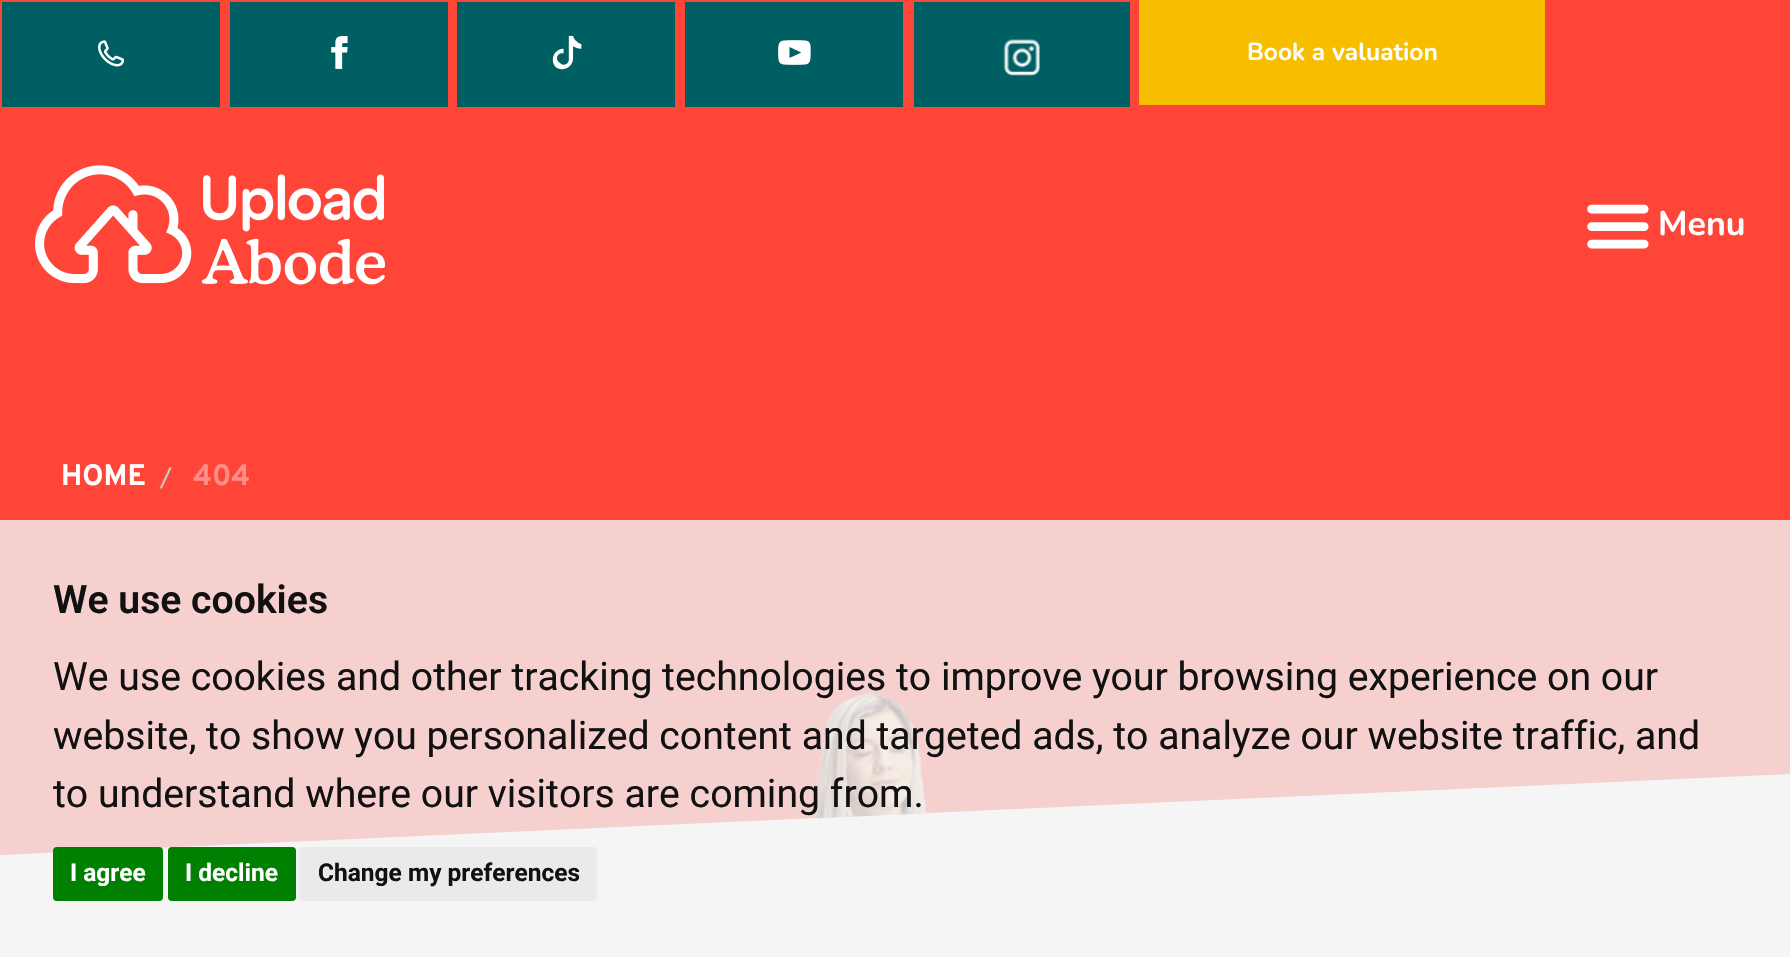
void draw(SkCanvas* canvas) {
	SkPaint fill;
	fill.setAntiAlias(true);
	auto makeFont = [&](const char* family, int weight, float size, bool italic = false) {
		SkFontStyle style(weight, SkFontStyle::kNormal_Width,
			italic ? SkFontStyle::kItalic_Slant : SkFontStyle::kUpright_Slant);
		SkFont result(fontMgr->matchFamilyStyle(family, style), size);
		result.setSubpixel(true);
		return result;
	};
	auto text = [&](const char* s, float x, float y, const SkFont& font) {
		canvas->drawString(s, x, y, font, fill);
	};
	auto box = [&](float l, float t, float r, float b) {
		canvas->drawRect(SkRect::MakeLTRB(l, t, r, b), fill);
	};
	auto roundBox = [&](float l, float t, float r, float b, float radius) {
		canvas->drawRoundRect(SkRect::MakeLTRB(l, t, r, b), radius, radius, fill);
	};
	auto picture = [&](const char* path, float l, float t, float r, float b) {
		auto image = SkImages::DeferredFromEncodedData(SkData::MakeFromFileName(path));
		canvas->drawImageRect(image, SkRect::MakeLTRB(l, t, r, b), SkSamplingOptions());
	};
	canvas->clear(0xFFFFFFFF);
	fill.setColor(0xFFFF4438);
	box(0, 0, 1790, 233);
	fill.setColor(0xFF005F63);
	box(2, 2, 220, 107);
	picture("image0.png", 98, 40, 124, 67);
	box(230, 2, 448, 107);
	picture("image1.png", 331, 36, 348, 69);
	box(457, 2, 675, 107);
	picture("image2.png", 552, 35, 582, 70);
	box(685, 2, 903, 107);
	picture("image3.png", 778, 40, 811, 65);
	box(914, 2, 1130, 107);
	picture("image4.png", 1003, 39, 1040, 76);
	fill.setColor(0xFFF7BE00);
	box(1139, 0, 1545, 105);
	fill.setColor(0xFFFF4438);
	canvas->drawPath(SkPathBuilder().moveTo(0, 233).lineTo(0, 855).lineTo(1790, 774).lineTo(1790, 233).close().detach(), fill);
	picture("image5.png", 35, 165, 385, 285);
	picture("image6.png", 1587, 204, 1649, 249);
	picture("image7.png", 346, 692, 927, 840);
	fill.setColor(0xCCF2F2F2);
	box(0, 520, 1790, 957);
	fill.setColor(0xFF008000);
	roundBox(53, 847, 163, 901, 4);
	roundBox(168, 847, 296, 901, 4);
	fill.setColor(0xFFEAEAEA);
	roundBox(299, 847, 597, 901, 4);
	auto font1 = makeFont("Nunito", 700, 24.5f);
	fill.setColor(0xFFFFFFFF);
	text("Book a valuation", 1247, 60, font1);
	auto font2 = makeFont("Nunito", 700, 34);
	text("Menu", 1658, 235, font2);
	auto font3 = makeFont("Overpass", 700, 29.5f);
	text("HOME", 61, 485, font3);
	auto font4 = makeFont("Overpass", 400, 24.5f);
	fill.setColor(0xFFCCCCCC);
	text("/", 160, 485, font4);
	fill.setColor(0xFFFF8F88);
	text("404", 193, 485, font3);
	auto font5 = makeFont("Roboto", 600, 39.2f);
	fill.setColor(0xFF111111);
	text("We use cookies", 53, 613, font5);
	auto font6 = makeFont("Roboto", 400, 39.2f);
	text("We use cookies and other tracking technologies to improve your browsing experience on our", 53, 690, font6);
	text("website, to show you personalized content and targeted ads, to analyze our website traffic, and", 53, 749, font6);
	text("to understand where our visitors are coming from.", 53, 807, font6);
	auto font7 = makeFont("Roboto", 700, 24.5f);
	fill.setColor(0xFFFFFFFF);
	text("I agree", 70, 881, font7);
	text("I decline", 185, 881, font7);
	fill.setColor(0xFF111111);
	text("Change my preferences", 318, 881, font7);
}
